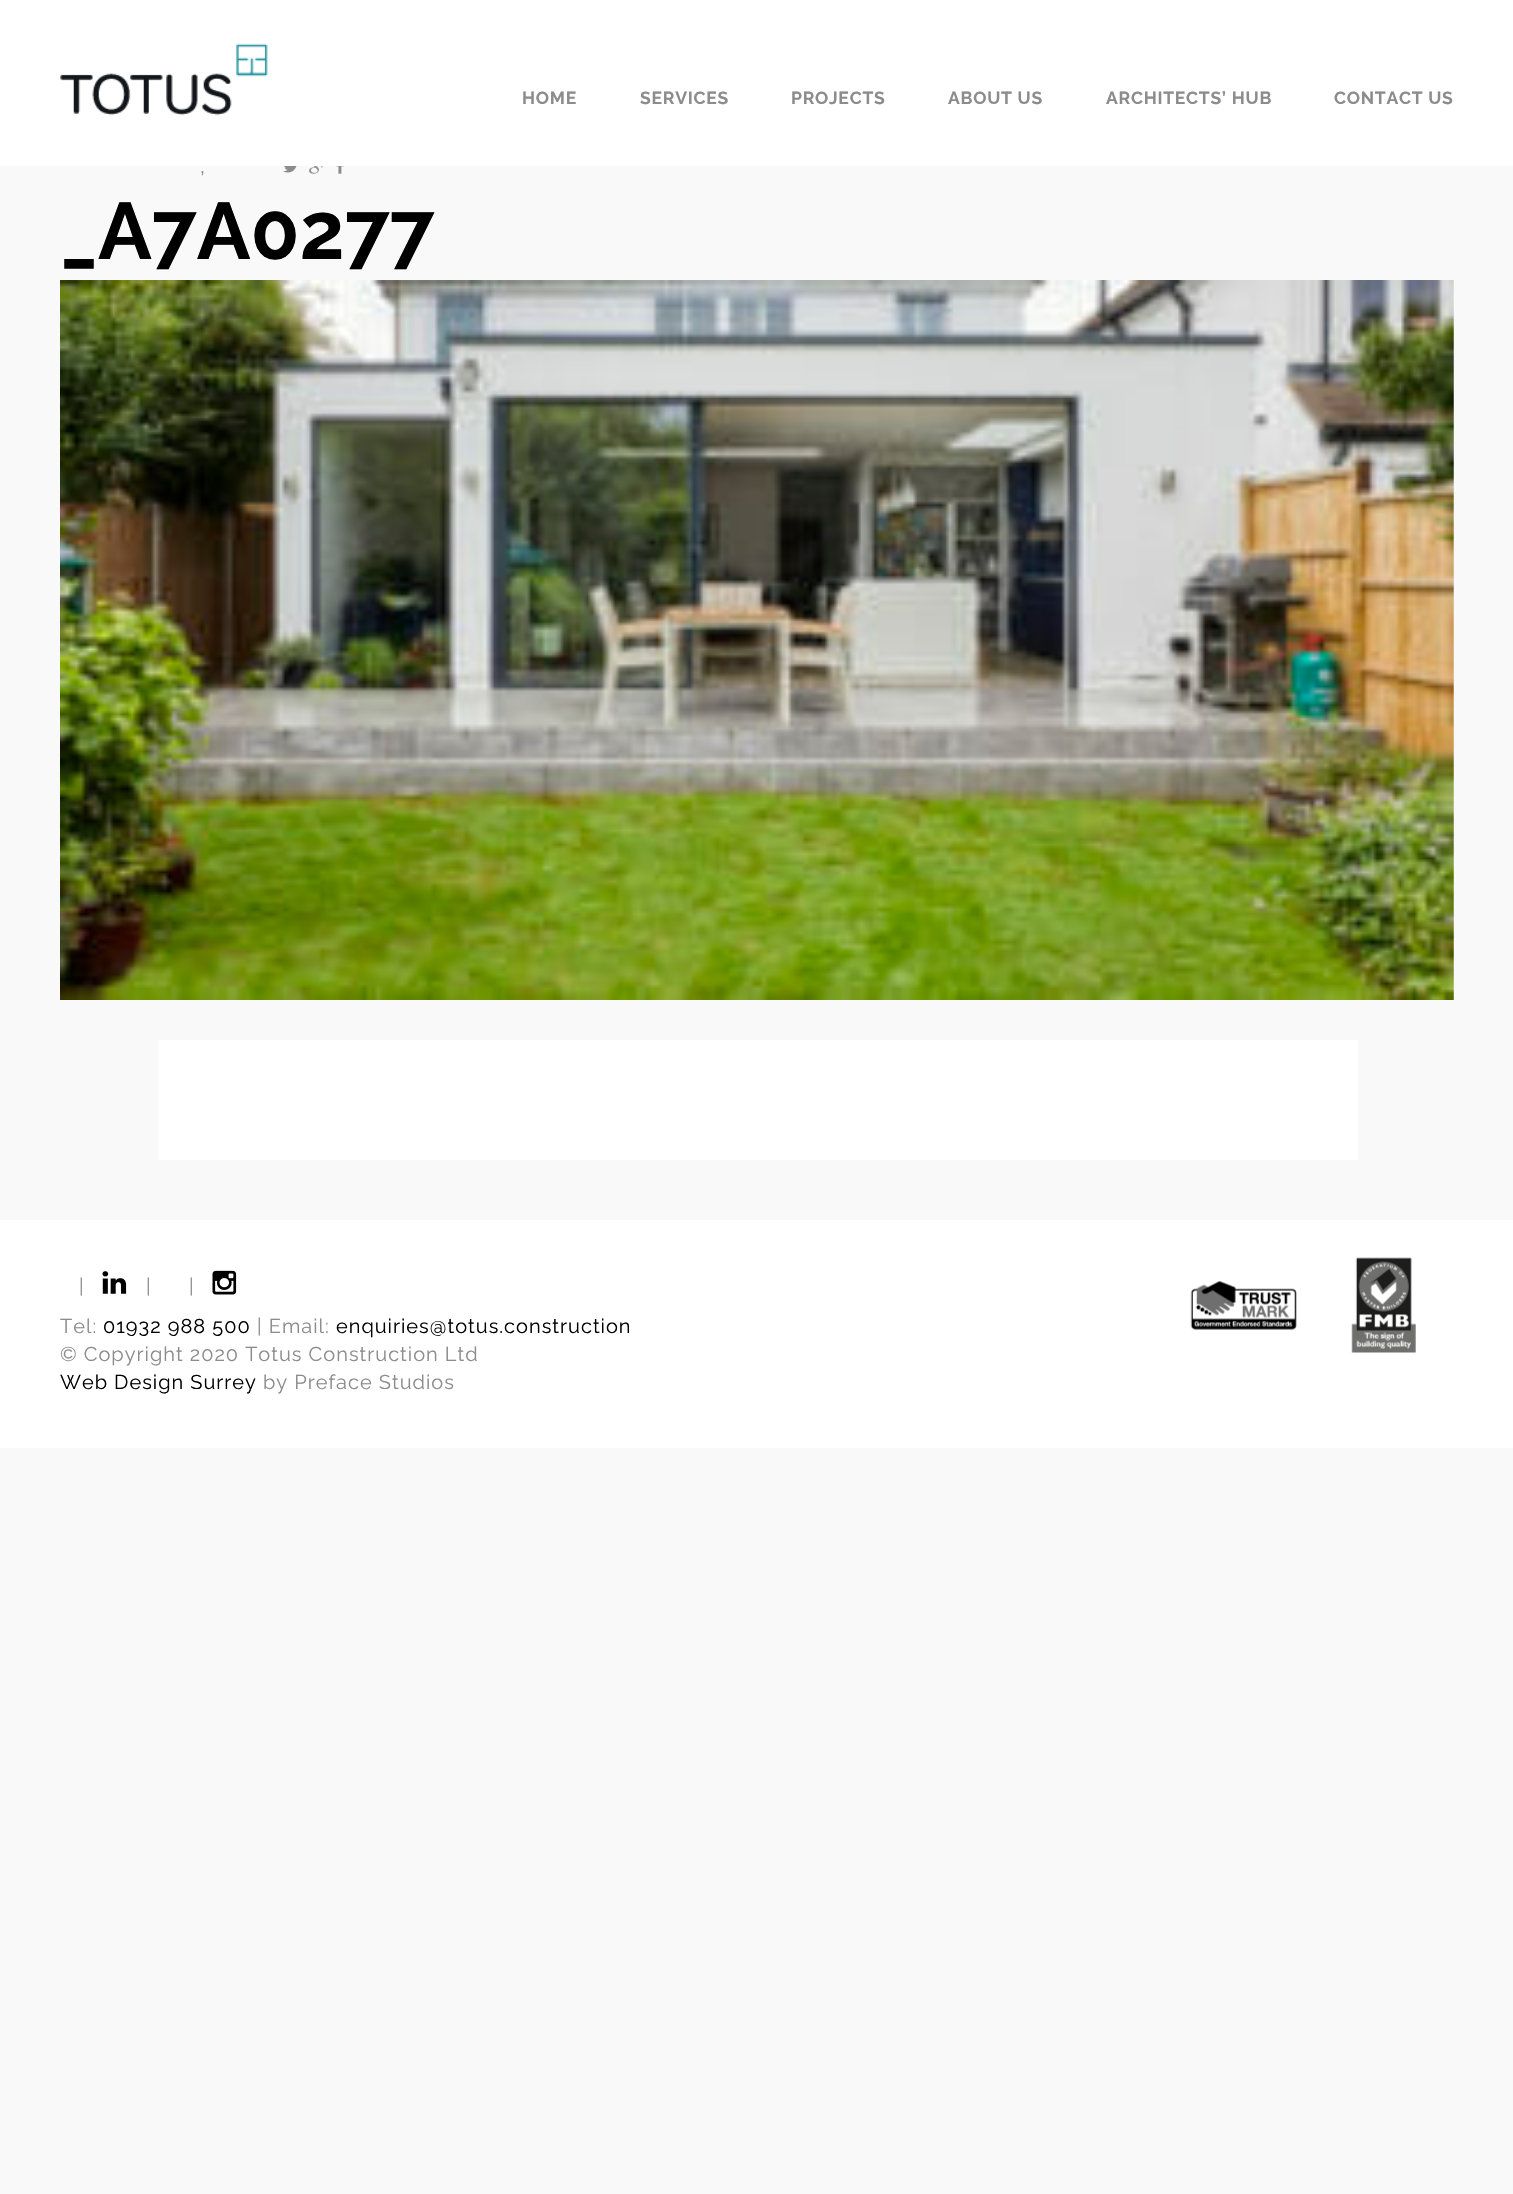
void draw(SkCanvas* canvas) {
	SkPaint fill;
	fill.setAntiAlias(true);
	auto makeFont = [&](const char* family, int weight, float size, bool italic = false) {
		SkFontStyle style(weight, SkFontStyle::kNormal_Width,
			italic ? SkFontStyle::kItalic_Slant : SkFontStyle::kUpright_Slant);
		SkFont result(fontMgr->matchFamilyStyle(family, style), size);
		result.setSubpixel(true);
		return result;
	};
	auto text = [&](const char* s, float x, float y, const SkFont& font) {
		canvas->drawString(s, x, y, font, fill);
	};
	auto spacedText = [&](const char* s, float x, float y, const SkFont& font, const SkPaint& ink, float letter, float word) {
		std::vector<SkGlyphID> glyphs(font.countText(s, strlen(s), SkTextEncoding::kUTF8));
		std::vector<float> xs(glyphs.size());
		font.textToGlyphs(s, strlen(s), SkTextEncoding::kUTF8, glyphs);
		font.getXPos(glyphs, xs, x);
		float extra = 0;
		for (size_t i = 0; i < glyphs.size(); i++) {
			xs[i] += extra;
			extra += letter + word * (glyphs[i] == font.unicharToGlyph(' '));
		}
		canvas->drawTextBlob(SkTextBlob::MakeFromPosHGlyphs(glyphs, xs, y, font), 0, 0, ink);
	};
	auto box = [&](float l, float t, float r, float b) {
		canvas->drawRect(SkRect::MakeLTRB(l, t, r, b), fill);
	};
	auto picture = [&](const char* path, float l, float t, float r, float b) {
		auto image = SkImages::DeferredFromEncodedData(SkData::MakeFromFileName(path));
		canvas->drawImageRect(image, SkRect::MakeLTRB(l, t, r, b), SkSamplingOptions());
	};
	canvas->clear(0xFFF9F9F9);
	fill.setColor(0xFFFFFFFF);
	box(0, 0, 1513, 166);
	picture("image0.png", 60, 43, 268, 116);
	picture("image1.png", 283, 166, 297, 173);
	picture("image2.png", 309, 166, 323, 174);
	picture("image3.png", 335, 166, 344, 174);
	picture("image4.png", 60, 280, 1454, 1000);
	box(158, 1040, 1358, 1160);
	box(0, 1220, 1513, 1448);
	picture("image5.png", 102, 1271, 127, 1294);
	picture("image6.png", 212, 1270, 237, 1295);
	picture("image7.png", 1190, 1281, 1297, 1330);
	picture("image8.png", 1351, 1257, 1416, 1353);
	auto font1 = makeFont("Raleway", 700, 17.5f);
	fill.setColor(0xFF8C8C8C);
	spacedText("HOME", 522, 104, font1, fill, 0.75f, 0);
	spacedText("SERVICES", 640, 104, font1, fill, 0.75f, 0);
	spacedText("PROJECTS", 791, 104, font1, fill, 0.75f, 0);
	spacedText("ABOUT US", 948, 104, font1, fill, 0.75f, 0);
	spacedText("ARCHITECTS’ HUB", 1106, 104, font1, fill, 0.75f, 0);
	spacedText("CONTACT US", 1334, 104, font1, fill, 0.75f, 0);
	auto font2 = makeFont("Liberation Sans", 400, 17.5f);
	text(",", 200, 173, font2);
	auto font3 = makeFont("Raleway", 700, 80);
	fill.setColor(0xFF000000);
	text("_A7A0277", 60, 259, font3);
	auto font4 = makeFont("Raleway", 400, 20);
	fill.setColor(0xFF8C8C8C);
	spacedText("|", 79, 1293, font4, fill, 1, 0);
	spacedText("|", 146, 1293, font4, fill, 1, 0);
	spacedText("|", 189, 1293, font4, fill, 1, 0);
	spacedText("Tel:", 60, 1333, font4, fill, 1, 0);
	fill.setColor(0xFF000000);
	spacedText("01932 988 500", 103, 1333, font4, fill, 1, 0);
	fill.setColor(0xFF8C8C8C);
	spacedText("| Email:", 257, 1333, font4, fill, 1, 0);
	fill.setColor(0xFF000000);
	spacedText("enquiries@totus.construction", 336, 1333, font4, fill, 1, 0);
	fill.setColor(0xFF8C8C8C);
	spacedText("© Copyright 2020 Totus Construction Ltd", 60, 1361, font4, fill, 1, 0);
	fill.setColor(0xFF000000);
	spacedText("Web Design Surrey", 60, 1389, font4, fill, 1, 0);
	fill.setColor(0xFF8C8C8C);
	spacedText("by Preface Studios", 263, 1389, font4, fill, 1, 0);
}
